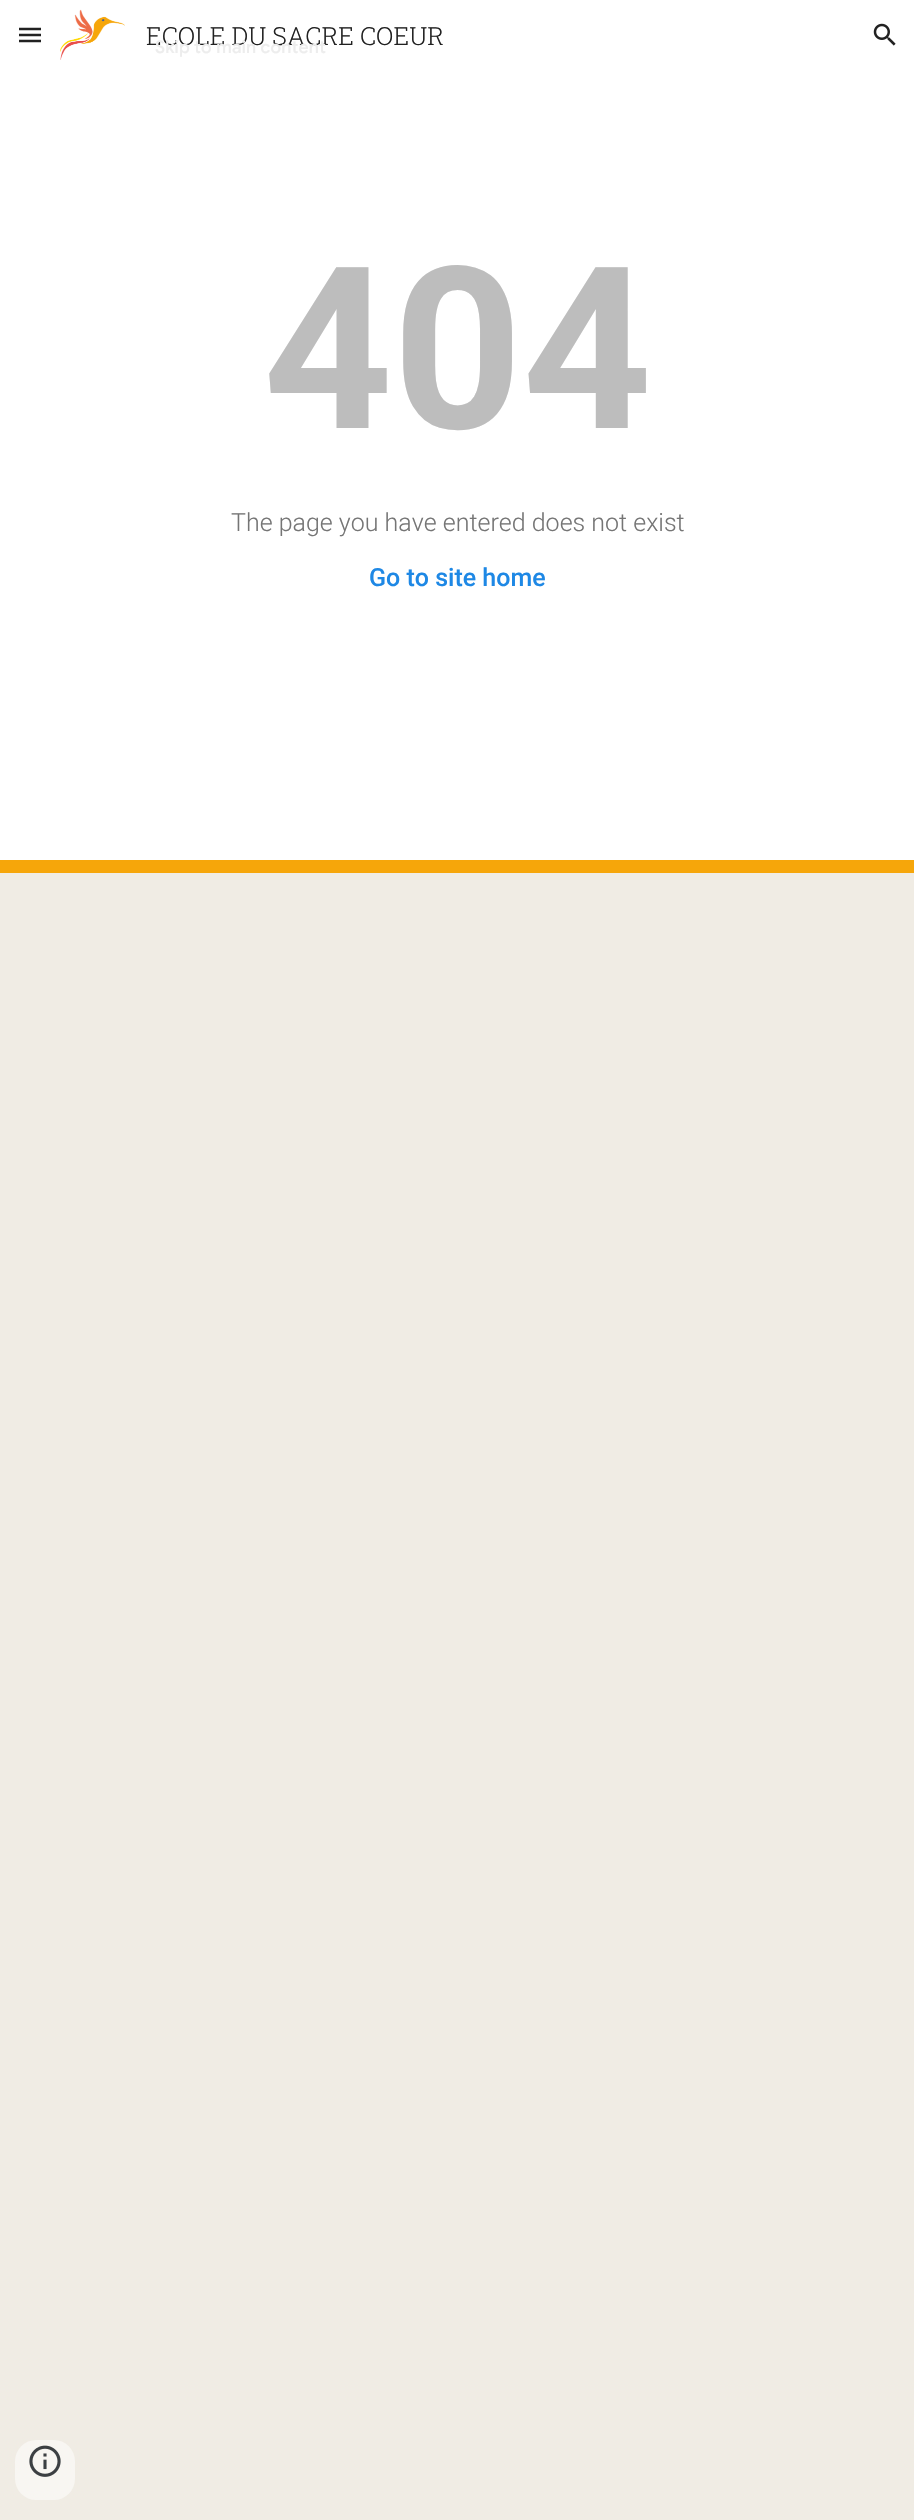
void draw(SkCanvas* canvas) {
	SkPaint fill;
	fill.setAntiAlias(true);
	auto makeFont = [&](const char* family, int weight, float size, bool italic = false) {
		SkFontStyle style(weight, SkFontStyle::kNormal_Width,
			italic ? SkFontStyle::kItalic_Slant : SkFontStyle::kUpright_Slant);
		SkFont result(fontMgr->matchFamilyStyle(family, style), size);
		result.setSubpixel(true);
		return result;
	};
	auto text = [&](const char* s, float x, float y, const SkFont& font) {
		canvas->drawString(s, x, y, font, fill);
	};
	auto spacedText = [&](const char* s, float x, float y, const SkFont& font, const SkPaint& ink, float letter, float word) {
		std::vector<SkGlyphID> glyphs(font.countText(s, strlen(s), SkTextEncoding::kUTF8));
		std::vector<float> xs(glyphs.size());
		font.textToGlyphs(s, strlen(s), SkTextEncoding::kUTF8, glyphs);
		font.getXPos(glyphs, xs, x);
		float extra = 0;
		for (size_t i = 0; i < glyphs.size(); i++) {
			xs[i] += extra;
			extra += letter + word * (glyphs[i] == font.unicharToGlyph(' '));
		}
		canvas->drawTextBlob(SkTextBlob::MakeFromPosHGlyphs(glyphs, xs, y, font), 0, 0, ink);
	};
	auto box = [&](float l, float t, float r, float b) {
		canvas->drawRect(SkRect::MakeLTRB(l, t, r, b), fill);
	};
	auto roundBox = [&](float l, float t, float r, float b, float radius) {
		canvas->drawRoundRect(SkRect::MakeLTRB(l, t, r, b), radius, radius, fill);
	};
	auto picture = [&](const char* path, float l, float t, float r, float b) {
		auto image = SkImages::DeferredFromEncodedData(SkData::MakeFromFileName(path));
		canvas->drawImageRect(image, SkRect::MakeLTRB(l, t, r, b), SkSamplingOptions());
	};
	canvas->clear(0xFFF0ECE4);
	fill.setColor(0xFFFFFFFF);
	box(0, 0, 914, 860);
	fill.setStyle(SkPaint::kStroke_Style);
	fill.setStrokeWidth(2.5f);
	fill.setColor(0xFF212121);
	canvas->drawPath(SkPathBuilder().moveTo(19, 29).lineTo(41, 29).moveTo(19, 35).lineTo(41, 35).moveTo(19, 41).lineTo(41, 41).detach(), fill);
	picture("image0.png", 60, 9, 125, 60);
	picture("image1.png", 873, 23, 896, 46);
	fill.setStyle(SkPaint::kFill_Style);
	fill.setColor(0xFFF6A60A);
	box(0, 860, 914, 873);
	fill.setColor(0xFFF8F6F2);
	roundBox(15, 2440, 75, 2500, 21);
	picture("image2.png", 29, 2445, 61, 2477);
	auto font1 = makeFont("Roboto Slab", 300, 25);
	fill.setColor(0xFF212121);
	text("ECOLE DU SACRE COEUR", 146, 45, font1);
	auto font2 = makeFont("Roboto", 700, 226);
	fill.setColor(0xFFBDBDBD);
	text("404", 263, 428, font2);
	auto font3 = makeFont("Roboto", 300, 25);
	fill.setColor(0xFF757575);
	text("The page you have entered does not exist", 231, 531, font3);
	auto font4 = makeFont("Roboto", 500, 25);
	fill.setColor(0xFF1E88E5);
	text("Go to site home", 369, 586, font4);
	auto font5 = makeFont("Google Sans", 500, 17.5f);
	fill.setColor(0xFFEDEDED);
	spacedText("Skip to main content", 155, 53, font5, fill, 0.2f, 0);
}
